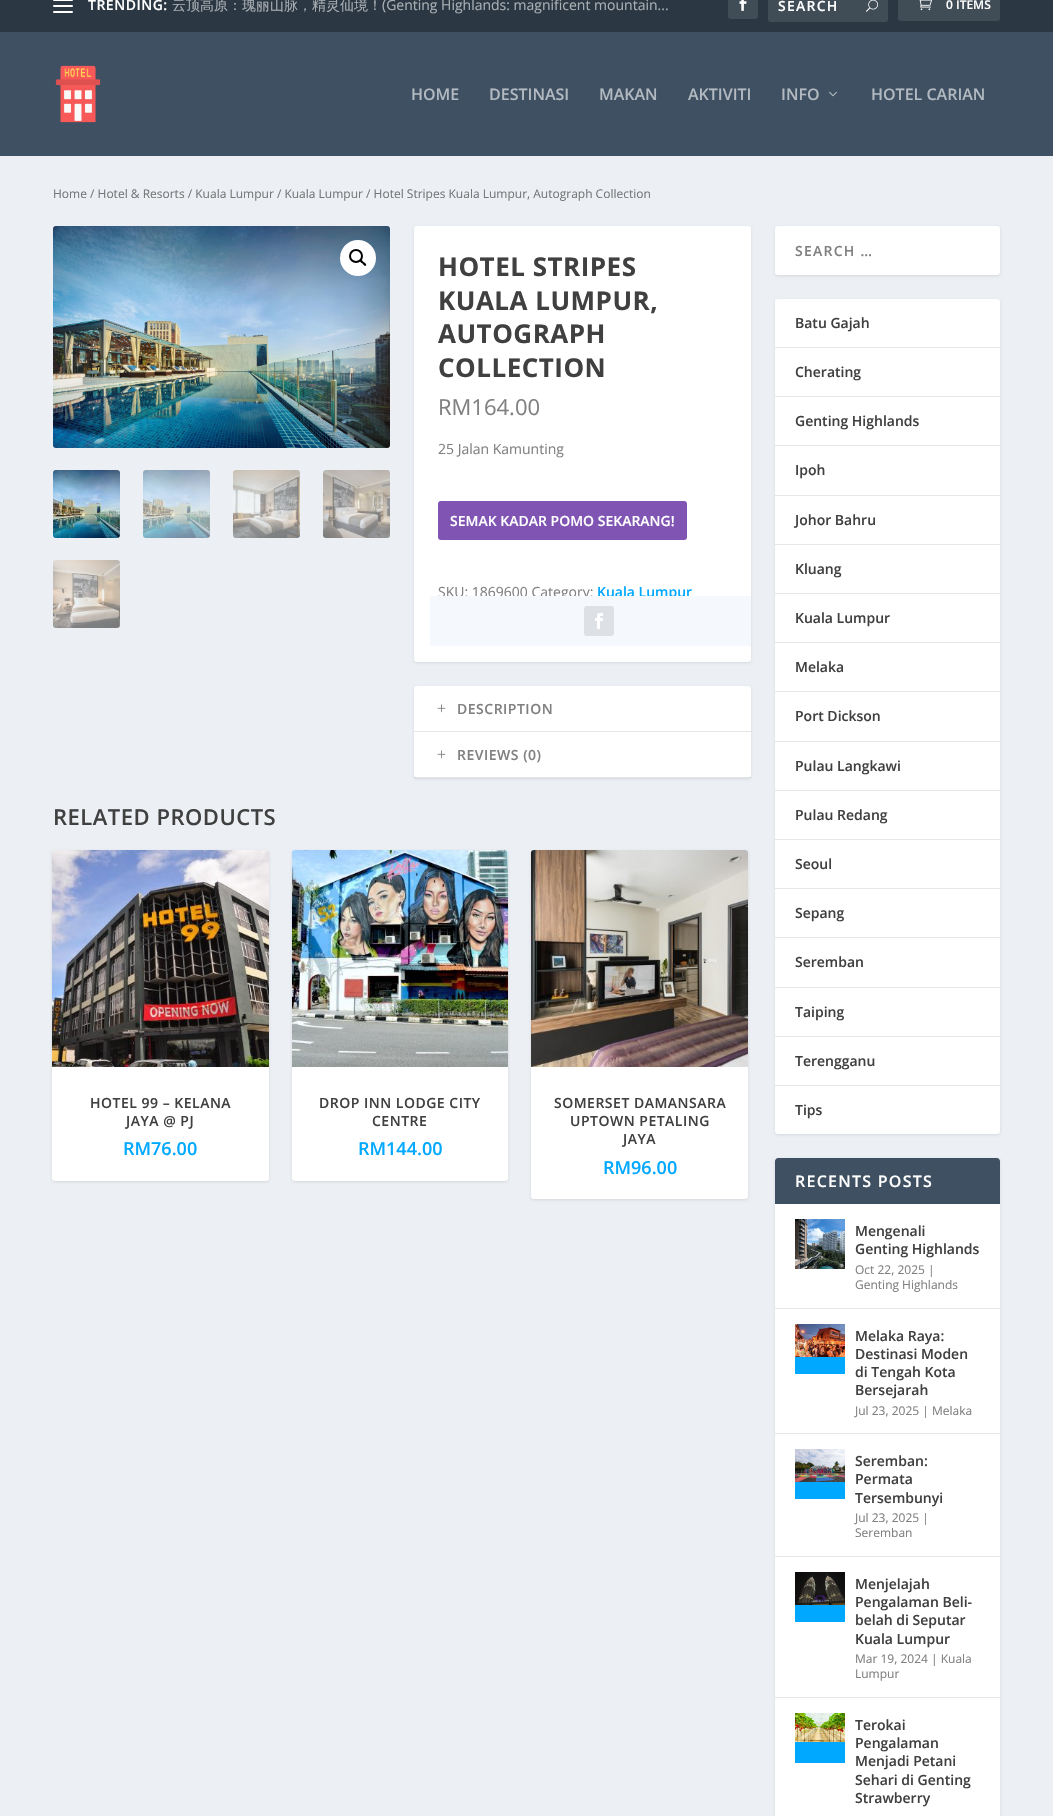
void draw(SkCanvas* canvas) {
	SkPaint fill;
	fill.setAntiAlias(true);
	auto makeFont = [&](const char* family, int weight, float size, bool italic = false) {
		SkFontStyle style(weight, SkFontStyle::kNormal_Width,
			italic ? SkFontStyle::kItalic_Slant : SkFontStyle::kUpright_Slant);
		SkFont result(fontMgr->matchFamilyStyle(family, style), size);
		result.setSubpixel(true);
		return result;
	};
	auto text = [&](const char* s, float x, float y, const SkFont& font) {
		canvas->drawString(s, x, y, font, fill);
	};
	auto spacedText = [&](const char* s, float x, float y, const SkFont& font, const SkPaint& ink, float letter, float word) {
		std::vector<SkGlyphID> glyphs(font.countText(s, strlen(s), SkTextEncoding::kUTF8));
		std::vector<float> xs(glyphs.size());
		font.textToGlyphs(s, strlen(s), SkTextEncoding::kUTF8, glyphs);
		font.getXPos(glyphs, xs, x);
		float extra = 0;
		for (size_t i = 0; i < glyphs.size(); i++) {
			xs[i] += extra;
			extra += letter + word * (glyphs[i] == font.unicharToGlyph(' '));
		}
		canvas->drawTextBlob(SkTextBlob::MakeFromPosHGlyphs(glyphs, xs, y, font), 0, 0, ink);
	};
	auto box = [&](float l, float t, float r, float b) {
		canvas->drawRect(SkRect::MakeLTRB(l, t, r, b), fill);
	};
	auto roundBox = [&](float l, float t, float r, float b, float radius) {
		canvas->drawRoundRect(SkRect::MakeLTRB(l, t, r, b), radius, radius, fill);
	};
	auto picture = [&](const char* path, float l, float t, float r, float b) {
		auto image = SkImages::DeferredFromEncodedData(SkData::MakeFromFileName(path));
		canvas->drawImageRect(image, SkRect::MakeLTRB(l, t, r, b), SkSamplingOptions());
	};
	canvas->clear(0xFFECF0F5);
	fill.setColor(0xFF2B3843);
	box(0, 0, 1053, 32);
	fill.setColor(0xFFFFFFFF);
	roundBox(53, -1, 73, 1, 1);
	roundBox(53, 5, 73, 7, 1);
	roundBox(53, 11, 73, 13, 1);
	fill.setColor(0xFF404C56);
	roundBox(728, -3, 758, 19, 3);
	picture("image0.png", 739, 0, 747, 11);
	roundBox(768, -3, 888, 22, 3);
	picture("image1.png", 866, 0, 878, 12);
	roundBox(898, -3, 1000, 21, 3);
	picture("image2.png", 919, 0, 932, 11);
	fill.setColor(0xFF3E5062);
	box(0, 32, 1053, 156);
	picture("image3.png", 55, 65, 101, 123);
	picture("image4.png", 829, 91, 837, 97);
	picture("image5.png", 53, 226, 390, 448);
	fill.setColor(0xFFFFFFFF);
	canvas->drawCircle(358, 258, 18, fill);
	fill.setStyle(SkPaint::kStroke_Style);
	fill.setStrokeWidth(2);
	fill.setColor(0xFF000000);
	canvas->drawCircle(356, 256, 6, fill);
	fill.setStyle(SkPaint::kFill_Style);
	canvas->drawPath(SkPathBuilder().moveTo(360, 260).cubicTo(361.5f, 259, 363, 261.5f, 363.5f, 262).cubicTo(364.5f, 262.5f, 367, 264.5f, 366, 265.5f).cubicTo(364.5f, 267, 363, 264, 362.5f, 263.5f).cubicTo(361.5f, 263, 359, 261, 360, 260).close().detach(), fill);
	picture("image6.png", 53, 470, 120, 538);
	picture("image7.png", 143, 470, 210, 538);
	picture("image8.png", 233, 470, 300, 538);
	picture("image9.png", 323, 470, 390, 538);
	picture("image10.png", 53, 560, 120, 628);
	fill.setColor(0x1A000000);
	fill.setMaskFilter(SkMaskFilter::MakeBlur(kNormal_SkBlurStyle, 1.5f));
	canvas->drawRoundRect(SkRect::MakeLTRB(414, 227, 751, 663), 3, 3, fill);
	fill.setMaskFilter(nullptr);
	fill.setColor(0xFFFFFFFF);
	roundBox(414, 226, 751, 662, 3);
	fill.setColor(0xFF7F54B3);
	roundBox(438, 501, 687, 540, 3);
	fill.setColor(0x1A000000);
	fill.setMaskFilter(SkMaskFilter::MakeBlur(kNormal_SkBlurStyle, 1.5f));
	canvas->drawRoundRect(SkRect::MakeLTRB(414, 687, 751, 779), 3, 3, fill);
	fill.setMaskFilter(nullptr);
	fill.setColor(0xFFFFFFFF);
	roundBox(414, 686, 751, 778, 3);
	fill.setColor(0xFFE6E6E6);
	box(414, 731, 751, 732);
	picture("image12.png", 437, 704, 446, 713);
	fill.setColor(0x1A000000);
	box(414, 777, 751, 778);
	picture("image12.png", 437, 750, 446, 759);
	fill.setMaskFilter(SkMaskFilter::MakeBlur(kNormal_SkBlurStyle, 1.5f));
	canvas->drawRoundRect(SkRect::MakeLTRB(52, 851, 269, 1182), 3, 3, fill);
	fill.setMaskFilter(nullptr);
	fill.setColor(0xFFFFFFFF);
	roundBox(52, 850, 269, 1181, 3);
	picture("image13.png", 52, 850, 269, 1067);
	fill.setColor(0x1A000000);
	fill.setMaskFilter(SkMaskFilter::MakeBlur(kNormal_SkBlurStyle, 1.5f));
	canvas->drawRoundRect(SkRect::MakeLTRB(292, 851, 508, 1182), 3, 3, fill);
	fill.setMaskFilter(nullptr);
	fill.setColor(0xFFFFFFFF);
	roundBox(292, 850, 508, 1181, 3);
	picture("image14.png", 292, 850, 508, 1067);
	fill.setColor(0x1A000000);
	fill.setMaskFilter(SkMaskFilter::MakeBlur(kNormal_SkBlurStyle, 1.5f));
	canvas->drawRoundRect(SkRect::MakeLTRB(531, 851, 748, 1200), 3, 3, fill);
	fill.setMaskFilter(nullptr);
	fill.setColor(0xFFFFFFFF);
	roundBox(531, 850, 748, 1199, 3);
	picture("image15.png", 531, 850, 748, 1067);
	fill.setColor(0x1A000000);
	fill.setMaskFilter(SkMaskFilter::MakeBlur(kNormal_SkBlurStyle, 1.5f));
	canvas->drawRoundRect(SkRect::MakeLTRB(775, 227, 1000, 276), 3, 3, fill);
	fill.setMaskFilter(nullptr);
	fill.setColor(0xFFFFFFFF);
	roundBox(775, 226, 1000, 275, 3);
	fill.setColor(0x1A000000);
	fill.setMaskFilter(SkMaskFilter::MakeBlur(kNormal_SkBlurStyle, 1.5f));
	canvas->drawRoundRect(SkRect::MakeLTRB(775, 300, 1000, 1135), 3, 3, fill);
	fill.setMaskFilter(nullptr);
	fill.setColor(0xFFFFFFFF);
	roundBox(775, 299, 1000, 1134, 3);
	fill.setColor(0xFFE6E6E6);
	box(775, 347, 1000, 348);
	box(775, 396, 1000, 397);
	box(775, 445, 1000, 446);
	box(775, 495, 1000, 496);
	box(775, 544, 1000, 545);
	box(775, 593, 1000, 594);
	box(775, 642, 1000, 643);
	box(775, 691, 1000, 692);
	box(775, 741, 1000, 742);
	box(775, 790, 1000, 791);
	box(775, 839, 1000, 840);
	box(775, 888, 1000, 889);
	box(775, 937, 1000, 938);
	box(775, 987, 1000, 988);
	box(775, 1036, 1000, 1037);
	box(775, 1085, 1000, 1086);
	fill.setColor(0x1A000000);
	fill.setMaskFilter(SkMaskFilter::MakeBlur(kNormal_SkBlurStyle, 1.5f));
	canvas->drawRoundRect(SkRect::MakeLTRB(775, 1159, 1000, 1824), 3, 3, fill);
	fill.setMaskFilter(nullptr);
	fill.setColor(0xFFFFFFFF);
	roundBox(775, 1158, 1000, 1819, 3);
	fill.setColor(0xFF3E5062);
	canvas->drawPath(SkPathBuilder().moveTo(778, 1158).lineTo(997, 1158).cubicTo(998.5f, 1158, 1000, 1159.5f, 1000, 1161).lineTo(1000, 1204).lineTo(775, 1204).lineTo(775, 1161).cubicTo(775, 1159.5f, 776.5f, 1158, 778, 1158).close().detach(), fill);
	fill.setColor(0xFFE6E6E6);
	box(775, 1308, 1000, 1309);
	picture("image16.png", 795, 1219, 845, 1269);
	box(775, 1433, 1000, 1434);
	fill.setColor(0xFF00A8FF);
	box(795, 1357, 845, 1374);
	picture("image17.png", 795, 1324, 845, 1357);
	fill.setColor(0xFFE6E6E6);
	box(775, 1556, 1000, 1557);
	fill.setColor(0xFF00A8FF);
	box(795, 1482, 845, 1499);
	picture("image18.png", 795, 1449, 845, 1482);
	fill.setColor(0xFFE6E6E6);
	box(775, 1697, 1000, 1698);
	fill.setColor(0xFF00A8FF);
	box(795, 1605, 845, 1622);
	picture("image19.png", 795, 1572, 845, 1605);
	box(795, 1742, 845, 1763);
	picture("image20.png", 795, 1713, 845, 1742);
	auto font1 = makeFont("Open Sans", 600, 14);
	fill.setColor(0xFFFFFFFF);
	spacedText("TRENDING:", 88, 10, font1, fill, 0.5f, 0);
	auto font2 = makeFont("WenQuanYi Zen Hei", 500, 14);
	fill.setColor(0xFFAAAFB4);
	text("云顶高原：瑰丽山脉，精灵仙境！", 172, 10, font2);
	auto font3 = makeFont("Open Sans", 400, 14);
	text("(Genting Highlands: magnificent mountain...", 382, 10, font3);
	fill.setColor(0xFFFFFFFF);
	spacedText("SEARCH", 778, 11, font1, fill, 1.25f, 0);
	auto font4 = makeFont("Open Sans", 600, 12);
	text("0 ITEMS", 946, 9, font4);
	auto font5 = makeFont("Open Sans", 600, 16);
	fill.setColor(0xFFB2B9C0);
	text("HOME", 411, 100, font5);
	text("DESTINASI", 489, 100, font5);
	text("MAKAN", 599, 100, font5);
	text("AKTIVITI", 688, 100, font5);
	text("INFO", 781, 100, font5);
	text("HOTEL CARIAN", 871, 100, font5);
	auto font6 = makeFont("Open Sans", 400, 12);
	fill.setColor(0xFF767676);
	text("Home / Hotel & Resorts / Kuala Lumpur / Kuala Lumpur / Hotel Stripes Kuala Lumpur, Autograph Collection", 53, 198, font6);
	auto font7 = makeFont("Open Sans", 700, 26);
	fill.setColor(0xFF404040);
	spacedText("HOTEL STRIPES", 438, 276, font7, fill, 0.5f, 0);
	spacedText("KUALA LUMPUR,", 438, 310, font7, fill, 0.5f, 0);
	spacedText("AUTOGRAPH", 438, 343, font7, fill, 0.5f, 0);
	spacedText("COLLECTION", 438, 377, font7, fill, 0.5f, 0);
	auto font8 = makeFont("Open Sans", 400, 22);
	fill.setColor(0xFF808080);
	text("RM164.00", 438, 415, font8);
	text("25 Jalan Kamunting", 438, 454, font3);
	fill.setColor(0xFFFFFFFF);
	text("SEMAK KADAR POMO SEKARANG!", 450, 526, font1);
	fill.setColor(0xFF808080);
	text("SKU: 1869600 Category:", 438, 597, font3);
	fill.setColor(0xFF00A8FF);
	text("Kuala Lumpur", 597, 597, font1);
	fill.setColor(0xFFF5F9FD);
	box(430, 596, 751, 646);
	fill.setColor(0xFFDDE0E4);
	roundBox(584, 606, 614, 636, 3);
	picture("image11.png", 595, 613, 603, 629);
	fill.setColor(0xFF808080);
	spacedText("DESCRIPTION", 457, 714, font1, fill, 0.5f, 0);
	spacedText("REVIEWS (0)", 457, 760, font1, fill, 0.5f, 0);
	auto font9 = makeFont("Open Sans", 600, 22);
	fill.setColor(0xFF404040);
	spacedText("RELATED PRODUCTS", 53, 825, font9, fill, 0.5f, 0);
	spacedText("HOTEL 99 – KELANA", 90, 1108, font1, fill, 0.5f, 0);
	spacedText("JAYA @ PJ", 126, 1126, font1, fill, 0.5f, 0);
	auto font10 = makeFont("Open Sans", 600, 18);
	fill.setColor(0xFF00A8FF);
	text("RM76.00", 123, 1155, font10);
	fill.setColor(0xFF404040);
	spacedText("DROP INN LODGE CITY", 319, 1108, font1, fill, 0.5f, 0);
	spacedText("CENTRE", 372, 1126, font1, fill, 0.5f, 0);
	fill.setColor(0xFF00A8FF);
	text("RM144.00", 358, 1155, font10);
	fill.setColor(0xFF404040);
	spacedText("SOMERSET DAMANSARA", 554, 1108, font1, fill, 0.5f, 0);
	spacedText("UPTOWN PETALING", 570, 1126, font1, fill, 0.5f, 0);
	spacedText("JAYA", 623, 1144, font1, fill, 0.5f, 0);
	fill.setColor(0xFF00A8FF);
	text("RM96.00", 603, 1174, font10);
	fill.setColor(0xFF808080);
	spacedText("SEARCH …", 795, 256, font1, fill, 1.25f, 0);
	fill.setColor(0xFF404040);
	text("Batu Gajah", 795, 328, font1);
	text("Cherating", 795, 377, font1);
	text("Genting Highlands", 795, 426, font1);
	text("Ipoh", 795, 475, font1);
	text("Johor Bahru", 795, 525, font1);
	text("Kluang", 795, 574, font1);
	text("Kuala Lumpur", 795, 623, font1);
	text("Melaka", 795, 672, font1);
	text("Port Dickson", 795, 721, font1);
	text("Pulau Langkawi", 795, 771, font1);
	text("Pulau Redang", 795, 820, font1);
	text("Seoul", 795, 869, font1);
	text("Sepang", 795, 918, font1);
	text("Seremban", 795, 967, font1);
	text("Taiping", 795, 1017, font1);
	text("Terengganu", 795, 1066, font1);
	text("Tips", 795, 1115, font1);
	fill.setColor(0xFFFFFFFF);
	spacedText("RECENTS POSTS", 795, 1187, font5, fill, 1.25f, 0);
	fill.setColor(0xFF404040);
	text("Mengenali", 855, 1236, font1);
	text("Genting Highlands", 855, 1254, font1);
	fill.setColor(0xFF808080);
	text("Oct 22, 2025 |", 855, 1274, font6);
	text("Genting Highlands", 855, 1289, font6);
	fill.setColor(0xFF404040);
	text("Melaka Raya:", 855, 1341, font1);
	text("Destinasi Moden", 855, 1359, font1);
	text("di Tengah Kota", 855, 1377, font1);
	text("Bersejarah", 855, 1395, font1);
	fill.setColor(0xFF808080);
	text("Jul 23, 2025 | Melaka", 855, 1415, font6);
	fill.setColor(0xFF404040);
	text("Seremban:", 855, 1466, font1);
	text("Permata", 855, 1484, font1);
	text("Tersembunyi", 855, 1503, font1);
	fill.setColor(0xFF808080);
	text("Jul 23, 2025 |", 855, 1522, font6);
	text("Seremban", 855, 1537, font6);
	fill.setColor(0xFF404040);
	text("Menjelajah", 855, 1589, font1);
	text("Pengalaman Beli-", 855, 1607, font1);
	text("belah di Seputar", 855, 1625, font1);
	text("Kuala Lumpur", 855, 1644, font1);
	fill.setColor(0xFF808080);
	text("Mar 19, 2024 | Kuala", 855, 1663, font6);
	text("Lumpur", 855, 1678, font6);
	fill.setColor(0xFF404040);
	text("Terokai", 855, 1730, font1);
	text("Pengalaman", 855, 1748, font1);
	text("Menjadi Petani", 855, 1766, font1);
	text("Sehari di Genting", 855, 1785, font1);
	text("Strawberry", 855, 1803, font1);
}
